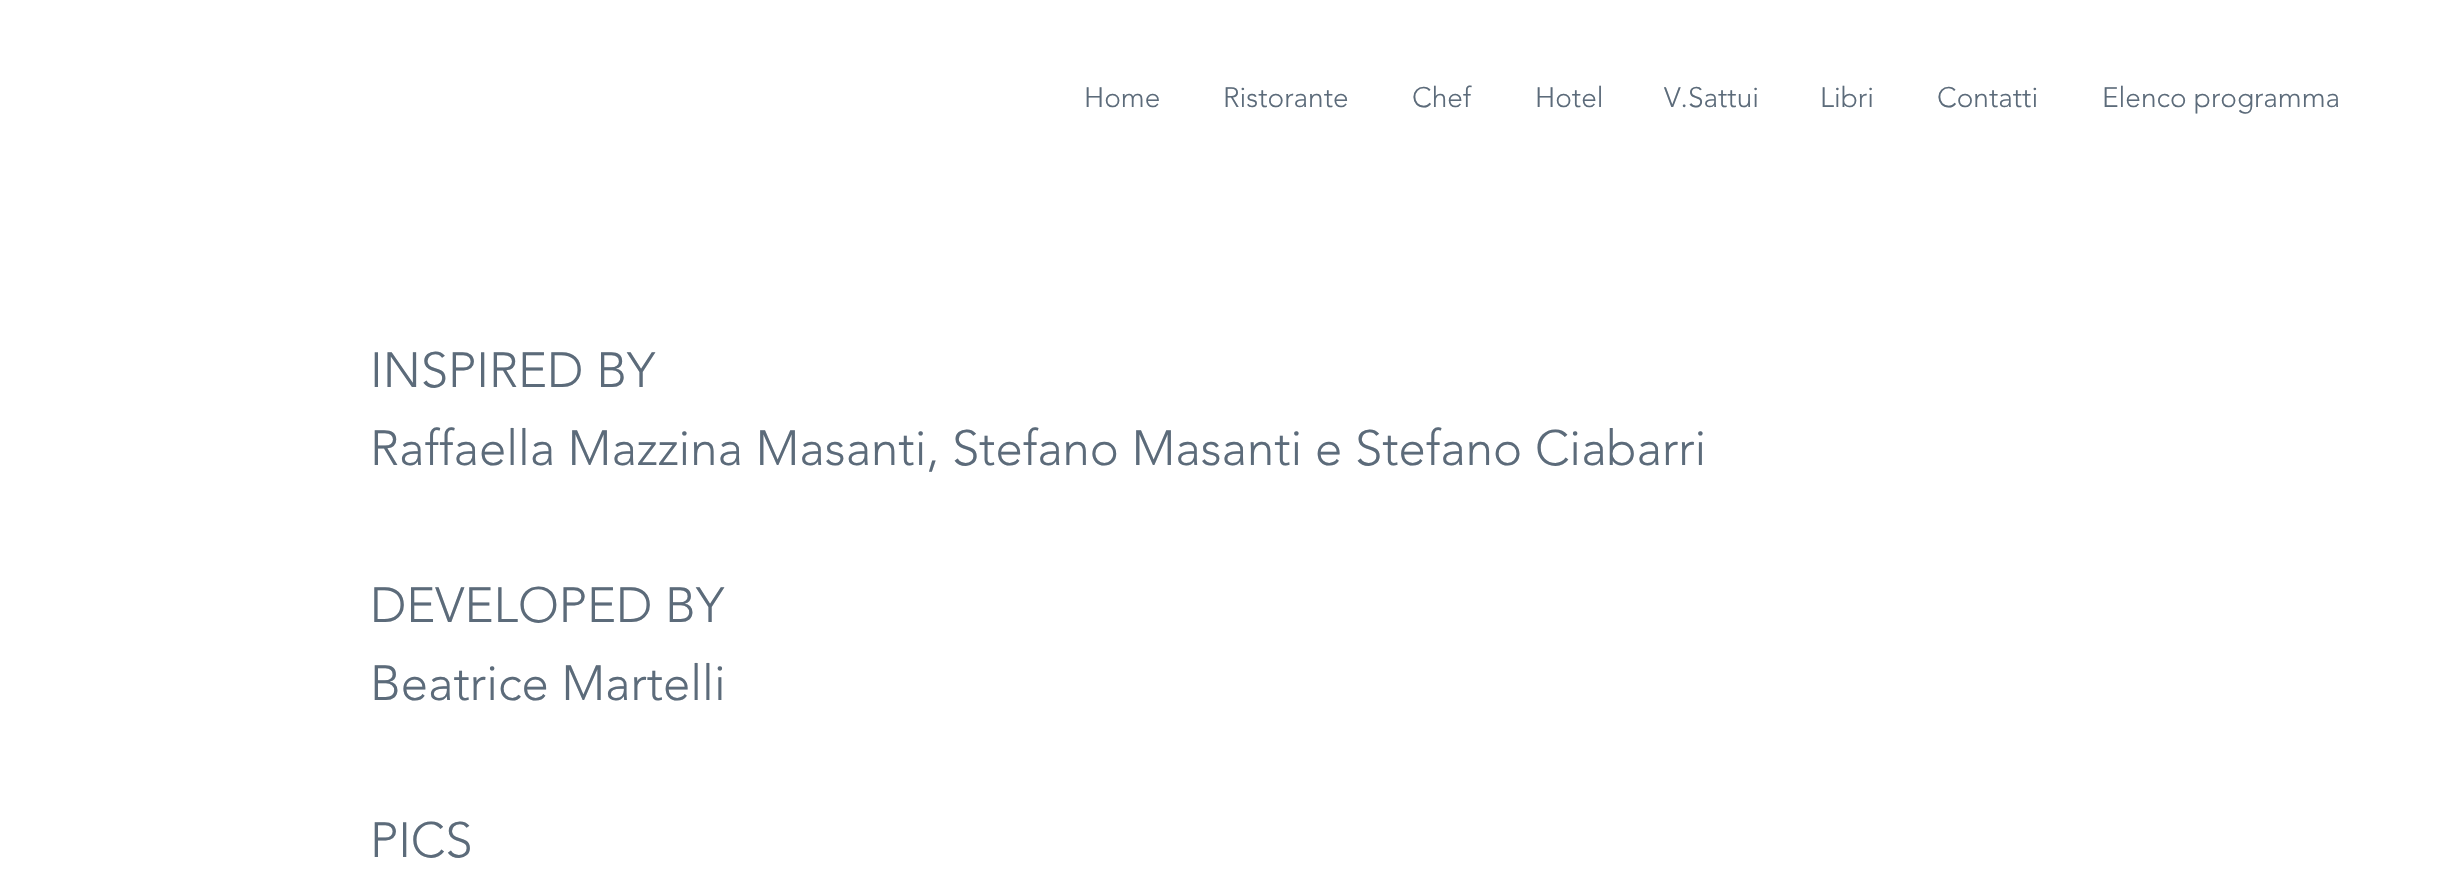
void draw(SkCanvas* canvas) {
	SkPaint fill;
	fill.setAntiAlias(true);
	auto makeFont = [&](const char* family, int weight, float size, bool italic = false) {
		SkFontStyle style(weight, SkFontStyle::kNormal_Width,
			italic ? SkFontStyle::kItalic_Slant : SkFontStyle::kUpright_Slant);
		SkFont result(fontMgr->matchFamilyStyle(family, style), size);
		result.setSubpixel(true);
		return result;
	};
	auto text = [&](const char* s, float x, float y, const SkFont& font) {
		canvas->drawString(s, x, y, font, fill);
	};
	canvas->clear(0xFFFFFFFF);
	auto font1 = makeFont("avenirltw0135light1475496", 300, 28);
	fill.setColor(0xFF5C6B7A);
	text("Home", 1084, 107, font1);
	text("Ristorante", 1223, 107, font1);
	text("Chef", 1412, 107, font1);
	text("Hotel", 1535, 107, font1);
	text("V.Sattui", 1664, 107, font1);
	text("Libri", 1820, 107, font1);
	text("Contatti", 1937, 107, font1);
	text("Elenco programma", 2102, 107, font1);
	auto font2 = makeFont("avenirltw0135light1475496", 300, 49);
	text("INSPIRED BY", 370, 387, font2);
	text("Raffaella Mazzina Masanti, Stefano Masanti e Stefano Ciabarri", 370, 465, font2);
	text("DEVELOPED BY", 370, 622, font2);
	text("Beatrice Martelli", 370, 700, font2);
	text("PICS", 370, 857, font2);
}
